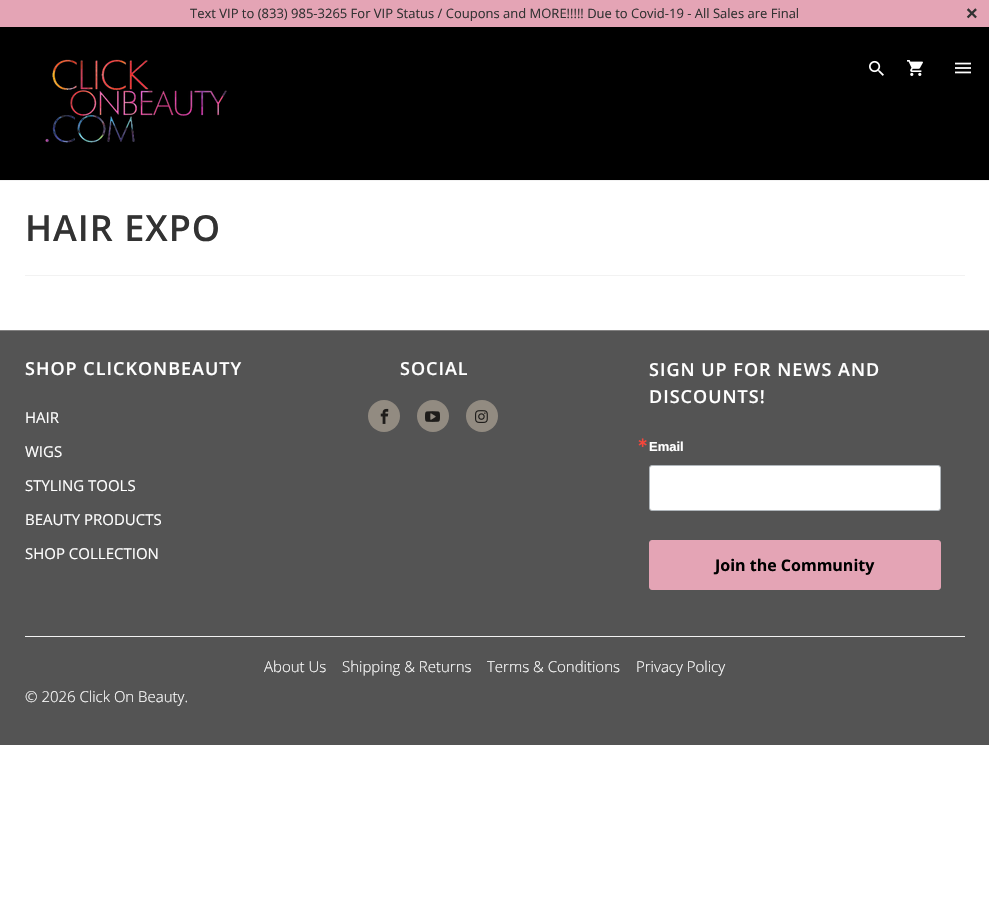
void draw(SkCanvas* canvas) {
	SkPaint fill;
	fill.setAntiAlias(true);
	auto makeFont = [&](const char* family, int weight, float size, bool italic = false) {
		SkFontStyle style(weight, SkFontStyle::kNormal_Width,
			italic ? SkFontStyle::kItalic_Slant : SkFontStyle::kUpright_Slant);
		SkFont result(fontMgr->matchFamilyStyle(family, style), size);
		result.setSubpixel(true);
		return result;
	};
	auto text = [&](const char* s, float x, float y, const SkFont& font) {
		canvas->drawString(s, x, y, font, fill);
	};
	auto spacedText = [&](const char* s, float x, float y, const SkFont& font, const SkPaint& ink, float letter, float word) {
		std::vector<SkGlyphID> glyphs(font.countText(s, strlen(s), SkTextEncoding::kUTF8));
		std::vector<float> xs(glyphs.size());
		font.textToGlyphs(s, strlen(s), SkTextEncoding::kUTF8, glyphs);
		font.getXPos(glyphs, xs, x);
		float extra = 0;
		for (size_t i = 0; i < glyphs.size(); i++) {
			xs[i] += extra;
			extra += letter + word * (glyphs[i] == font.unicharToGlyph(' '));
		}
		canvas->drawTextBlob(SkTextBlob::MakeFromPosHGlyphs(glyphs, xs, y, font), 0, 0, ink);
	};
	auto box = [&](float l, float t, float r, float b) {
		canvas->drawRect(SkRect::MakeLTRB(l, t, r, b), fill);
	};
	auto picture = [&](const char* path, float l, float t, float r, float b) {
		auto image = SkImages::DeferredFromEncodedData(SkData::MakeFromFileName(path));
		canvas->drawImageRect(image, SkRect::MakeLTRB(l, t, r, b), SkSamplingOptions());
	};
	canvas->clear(0xFFFFFFFF);
	fill.setColor(0xFFE4A4B5);
	box(0, 0, 989, 27);
	fill.setColor(0xFF000000);
	box(0, 27, 989, 180);
	fill.setColor(0xFFF2F2F2);
	box(0, 180, 989, 181);
	picture("image0.png", 45, 59, 227, 143);
	picture("image1.png", 869, 60, 884, 76);
	picture("image2.png", 907, 60, 923, 76);
	picture("image3.png", 955, 62, 971, 74);
	box(25, 275, 965, 276);
	fill.setColor(0xFF545454);
	box(0, 331, 989, 745);
	fill.setColor(0xFF828181);
	box(0, 330, 989, 331);
	fill.setColor(0xFF928B81);
	canvas->drawCircle(384, 416, 16, fill);
	picture("image4.png", 380, 408, 389, 424);
	canvas->drawCircle(433, 416, 16, fill);
	picture("image5.png", 425, 411, 440, 422);
	canvas->drawCircle(482, 416, 16, fill);
	picture("image6.png", 475, 410, 488, 423);
	fill.setColor(0xFFFFFFFF);
	canvas->drawRoundRect(SkRect::MakeLTRB(649.5f, 465.5f, 940.5f, 510.5f), 2.5f, 2.5f, fill);
	fill.setStyle(SkPaint::kStroke_Style);
	fill.setStrokeWidth(1);
	fill.setColor(0xFFB0B6BB);
	canvas->drawRoundRect(SkRect::MakeLTRB(649.5f, 465.5f, 940.5f, 510.5f), 2.5f, 2.5f, fill);
	fill.setStyle(SkPaint::kFill_Style);
	fill.setColor(0xFFE4A4B5);
	canvas->drawRoundRect(SkRect::MakeLTRB(649.5f, 540.5f, 940.5f, 589.5f), 2.5f, 2.5f, fill);
	fill.setStyle(SkPaint::kStroke_Style);
	canvas->drawRoundRect(SkRect::MakeLTRB(649.5f, 540.5f, 940.5f, 589.5f), 2.5f, 2.5f, fill);
	fill.setStyle(SkPaint::kFill_Style);
	fill.setColor(0xFFF2F2F2);
	box(25, 636, 965, 637);
	auto font1 = makeFont("Open Sans", 400, 13);
	fill.setColor(0xFF323232);
	text("Text VIP to (833) 985-3265 For VIP Status / Coupons and MORE!!!!! Due to Covid-19 - All Sales are Final", 190, 18, font1);
	auto font2 = makeFont("Liberation Sans", 700, 20);
	text("×", 966, 20, font2);
	auto font3 = makeFont("Open Sans", 600, 36);
	spacedText("HAIR EXPO", 25, 241, font3, fill, 1, 0);
	auto font4 = makeFont("Open Sans", 600, 18);
	fill.setColor(0xFFFFFFFF);
	spacedText("SHOP CLICKONBEAUTY", 25, 375, font4, fill, 1, 0);
	auto font5 = makeFont("Open Sans", 400, 15);
	text("HAIR", 25, 423, font5);
	text("WIGS", 25, 457, font5);
	text("STYLING TOOLS", 25, 491, font5);
	text("BEAUTY PRODUCTS", 25, 525, font5);
	text("SHOP COLLECTION", 25, 559, font5);
	spacedText("SOCIAL", 400, 375, font4, fill, 1, 0);
	spacedText("SIGN UP FOR NEWS AND", 649, 376, font4, fill, 1, 0);
	spacedText("DISCOUNTS!", 649, 403, font4, fill, 1, 0);
	auto font6 = makeFont("DejaVu Sans", 700, 13);
	fill.setColor(0xFFF5463B);
	text("∗", 637, 447, font6);
	auto font7 = makeFont("Liberation Sans", 700, 13);
	fill.setColor(0xFFFFFFFF);
	text("Email", 649, 451, font7);
	auto font8 = makeFont("Open Sans", 700, 16);
	fill.setColor(0xFF000000);
	text("Join the Community", 715, 571, font8);
	auto font9 = makeFont("Open Sans", 300, 15);
	fill.setColor(0xFFFFFFFF);
	text("About Us", 264, 672, font9);
	text("Shipping & Returns", 342, 672, font9);
	text("Terms & Conditions", 487, 672, font9);
	text("Privacy Policy", 636, 672, font9);
	text("© 2026 Click On Beauty.", 25, 702, font9);
}
